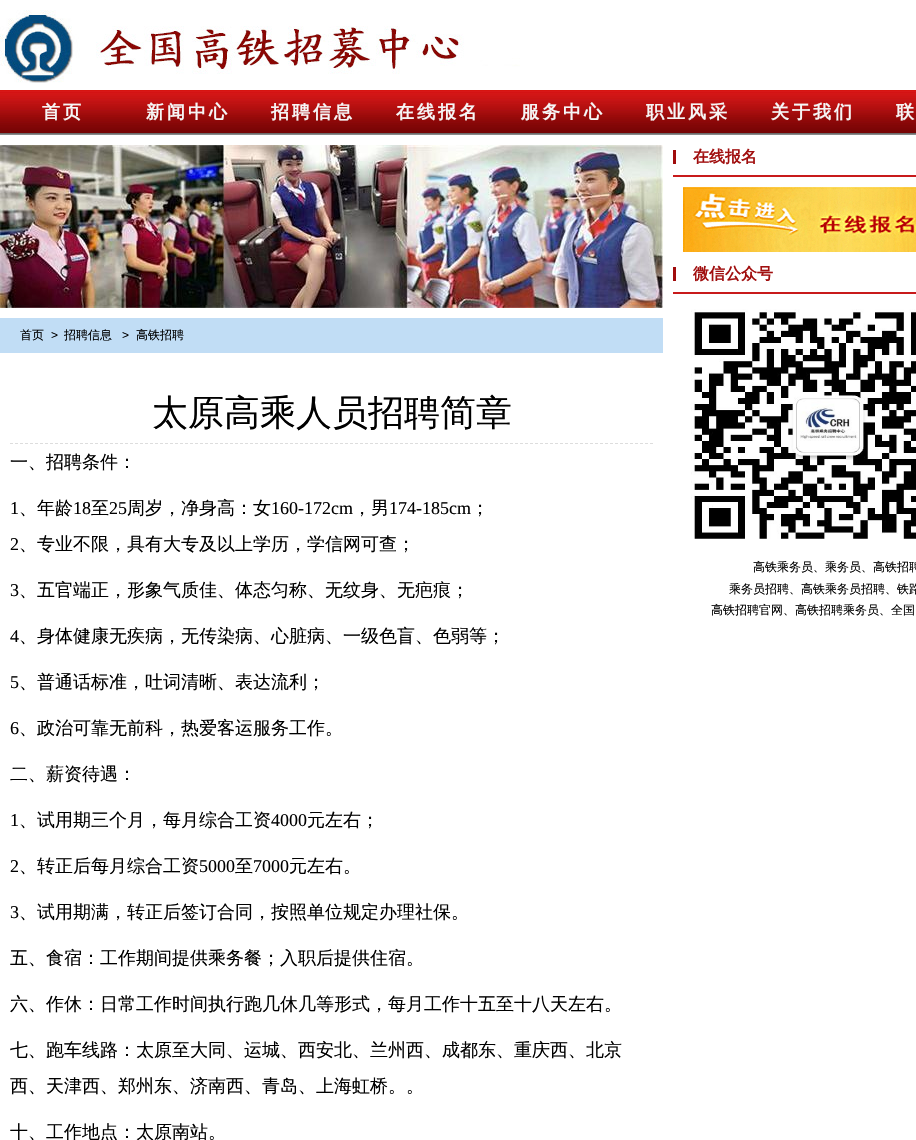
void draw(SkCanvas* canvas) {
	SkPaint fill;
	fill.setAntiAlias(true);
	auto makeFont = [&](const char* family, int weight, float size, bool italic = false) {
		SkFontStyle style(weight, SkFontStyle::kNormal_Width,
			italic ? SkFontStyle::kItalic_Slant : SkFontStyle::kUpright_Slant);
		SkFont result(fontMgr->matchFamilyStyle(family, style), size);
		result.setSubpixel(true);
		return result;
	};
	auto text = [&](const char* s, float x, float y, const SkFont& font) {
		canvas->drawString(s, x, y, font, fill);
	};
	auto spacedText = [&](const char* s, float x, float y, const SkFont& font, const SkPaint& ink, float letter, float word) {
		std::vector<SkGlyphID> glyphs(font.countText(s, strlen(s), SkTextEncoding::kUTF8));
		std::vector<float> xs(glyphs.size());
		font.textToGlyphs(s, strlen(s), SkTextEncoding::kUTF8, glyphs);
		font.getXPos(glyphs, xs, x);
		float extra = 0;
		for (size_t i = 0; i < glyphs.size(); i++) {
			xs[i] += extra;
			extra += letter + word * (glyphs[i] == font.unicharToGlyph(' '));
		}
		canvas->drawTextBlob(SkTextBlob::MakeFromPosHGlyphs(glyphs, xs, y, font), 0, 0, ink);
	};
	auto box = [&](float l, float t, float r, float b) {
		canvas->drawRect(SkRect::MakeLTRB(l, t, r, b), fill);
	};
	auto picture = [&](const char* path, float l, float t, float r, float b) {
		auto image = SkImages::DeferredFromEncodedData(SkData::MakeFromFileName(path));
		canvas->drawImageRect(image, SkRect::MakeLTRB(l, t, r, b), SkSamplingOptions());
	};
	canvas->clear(0xFFFFFFFF);
	picture("image0.png", 0, 10, 520, 83);
	picture("image1.png", 0, 90, 916, 135);
	picture("image2.png", 0, 145, 663, 308);
	fill.setColor(0xFFC1DDF5);
	box(0, 318, 663, 353);
	fill.setStyle(SkPaint::kStroke_Style);
	fill.setStrokeWidth(1);
	fill.setColor(0xFFDDDDDD);
	fill.setPathEffect(SkDashPathEffect::Make({{3, 2}}, 0));
	canvas->drawPath(SkPathBuilder().moveTo(10, 443.5f).lineTo(653, 443.5f).detach(), fill);
	fill.setPathEffect(nullptr);
	picture("image3.png", 673, 150, 676, 164);
	fill.setStyle(SkPaint::kFill_Style);
	fill.setColor(0xFFC81A1B);
	box(673, 175, 916, 177);
	picture("image4.png", 683, 187, 916, 252);
	picture("image3.png", 673, 267, 676, 281);
	box(673, 292, 916, 294);
	picture("image5.png", 691, 309, 916, 539);
	auto font1 = makeFont("WenQuanYi Zen Hei", 700, 18);
	fill.setColor(0xFFF6F6F6);
	spacedText("首页", 42, 118, font1, fill, 3, 0);
	spacedText("新闻中心", 146, 118, font1, fill, 3, 0);
	spacedText("招聘信息", 271, 118, font1, fill, 3, 0);
	spacedText("在线报名", 396, 118, font1, fill, 3, 0);
	spacedText("服务中心", 521, 118, font1, fill, 3, 0);
	spacedText("职业风采", 646, 118, font1, fill, 3, 0);
	spacedText("关于我们", 771, 118, font1, fill, 3, 0);
	spacedText("联", 896, 118, font1, fill, 3, 0);
	auto font2 = makeFont("WenQuanYi Zen Hei", 500, 12);
	fill.setColor(0xFF000000);
	text("首页", 20, 339, font2);
	auto font3 = makeFont("Liberation Sans", 400, 12);
	text(">", 51, 339, font3);
	text("招聘信息", 64, 339, font2);
	text(">", 122, 339, font3);
	text("高铁招聘", 136, 339, font2);
	auto font4 = makeFont("WenQuanYi Zen Hei", 500, 36);
	text("太原高乘人员招聘简章", 152, 425, font4);
	auto font5 = makeFont("WenQuanYi Zen Hei", 500, 18);
	text("一、招聘条件：", 10, 468, font5);
	auto font6 = makeFont("Liberation Serif", 400, 18);
	text("1", 10, 514, font6);
	text("、年龄", 19, 514, font5);
	text("18", 73, 514, font6);
	text("至", 91, 514, font5);
	text("25", 109, 514, font6);
	text("周岁，净身高：女", 127, 514, font5);
	text("160-172cm", 271, 514, font6);
	text("，男", 353, 514, font5);
	text("174-185cm", 389, 514, font6);
	text("；", 471, 514, font5);
	text("2", 10, 550, font6);
	text("、专业不限，具有大专及以上学历，学信网可查；", 19, 550, font5);
	text("3", 10, 596, font6);
	text("、五官端正，形象气质佳、体态匀称、无纹身、无疤痕；", 19, 596, font5);
	text("4", 10, 642, font6);
	text("、身体健康无疾病，无传染病、心脏病、一级色盲、色弱等；", 19, 642, font5);
	text("5", 10, 688, font6);
	text("、普通话标准，吐词清晰、表达流利；", 19, 688, font5);
	text("6", 10, 734, font6);
	text("、政治可靠无前科，热爱客运服务工作。", 19, 734, font5);
	text("二、薪资待遇：", 10, 780, font5);
	text("1", 10, 826, font6);
	text("、试用期三个月，每月综合工资", 19, 826, font5);
	text("4000", 271, 826, font6);
	text("元左右；", 307, 826, font5);
	text("2", 10, 872, font6);
	text("、转正后每月综合工资", 19, 872, font5);
	text("5000", 199, 872, font6);
	text("至", 235, 872, font5);
	text("7000", 253, 872, font6);
	text("元左右。", 289, 872, font5);
	text("3", 10, 918, font6);
	text("、试用期满，转正后签订合同，按照单位规定办理社保。", 19, 918, font5);
	text("五、食宿：工作期间提供乘务餐；入职后提供住宿。", 10, 964, font5);
	text("六、作休：日常工作时间执行跑几休几等形式，每月工作十五至十八天左右。", 10, 1010, font5);
	text("七、跑车线路：太原至大同、运城、西安北、兰州西、成都东、重庆西、北京", 10, 1056, font5);
	text("西、天津西、郑州东、济南西、青岛、上海虹桥。。", 10, 1092, font5);
	text("十、工作地点：太原南站。", 10, 1138, font5);
	auto font7 = makeFont("WenQuanYi Zen Hei", 700, 16);
	fill.setColor(0xFFA10F0F);
	text("在线报名", 693, 162, font7);
	text("微信公众号", 693, 279, font7);
	fill.setColor(0xFF000000);
	text("高铁乘务员、乘务员、高铁招聘", 753, 571, font2);
	text("乘务员招聘、高铁乘务员招聘、铁路", 729, 593, font2);
	text("高铁招聘官网、高铁招聘乘务员、全国", 711, 614, font2);
}
